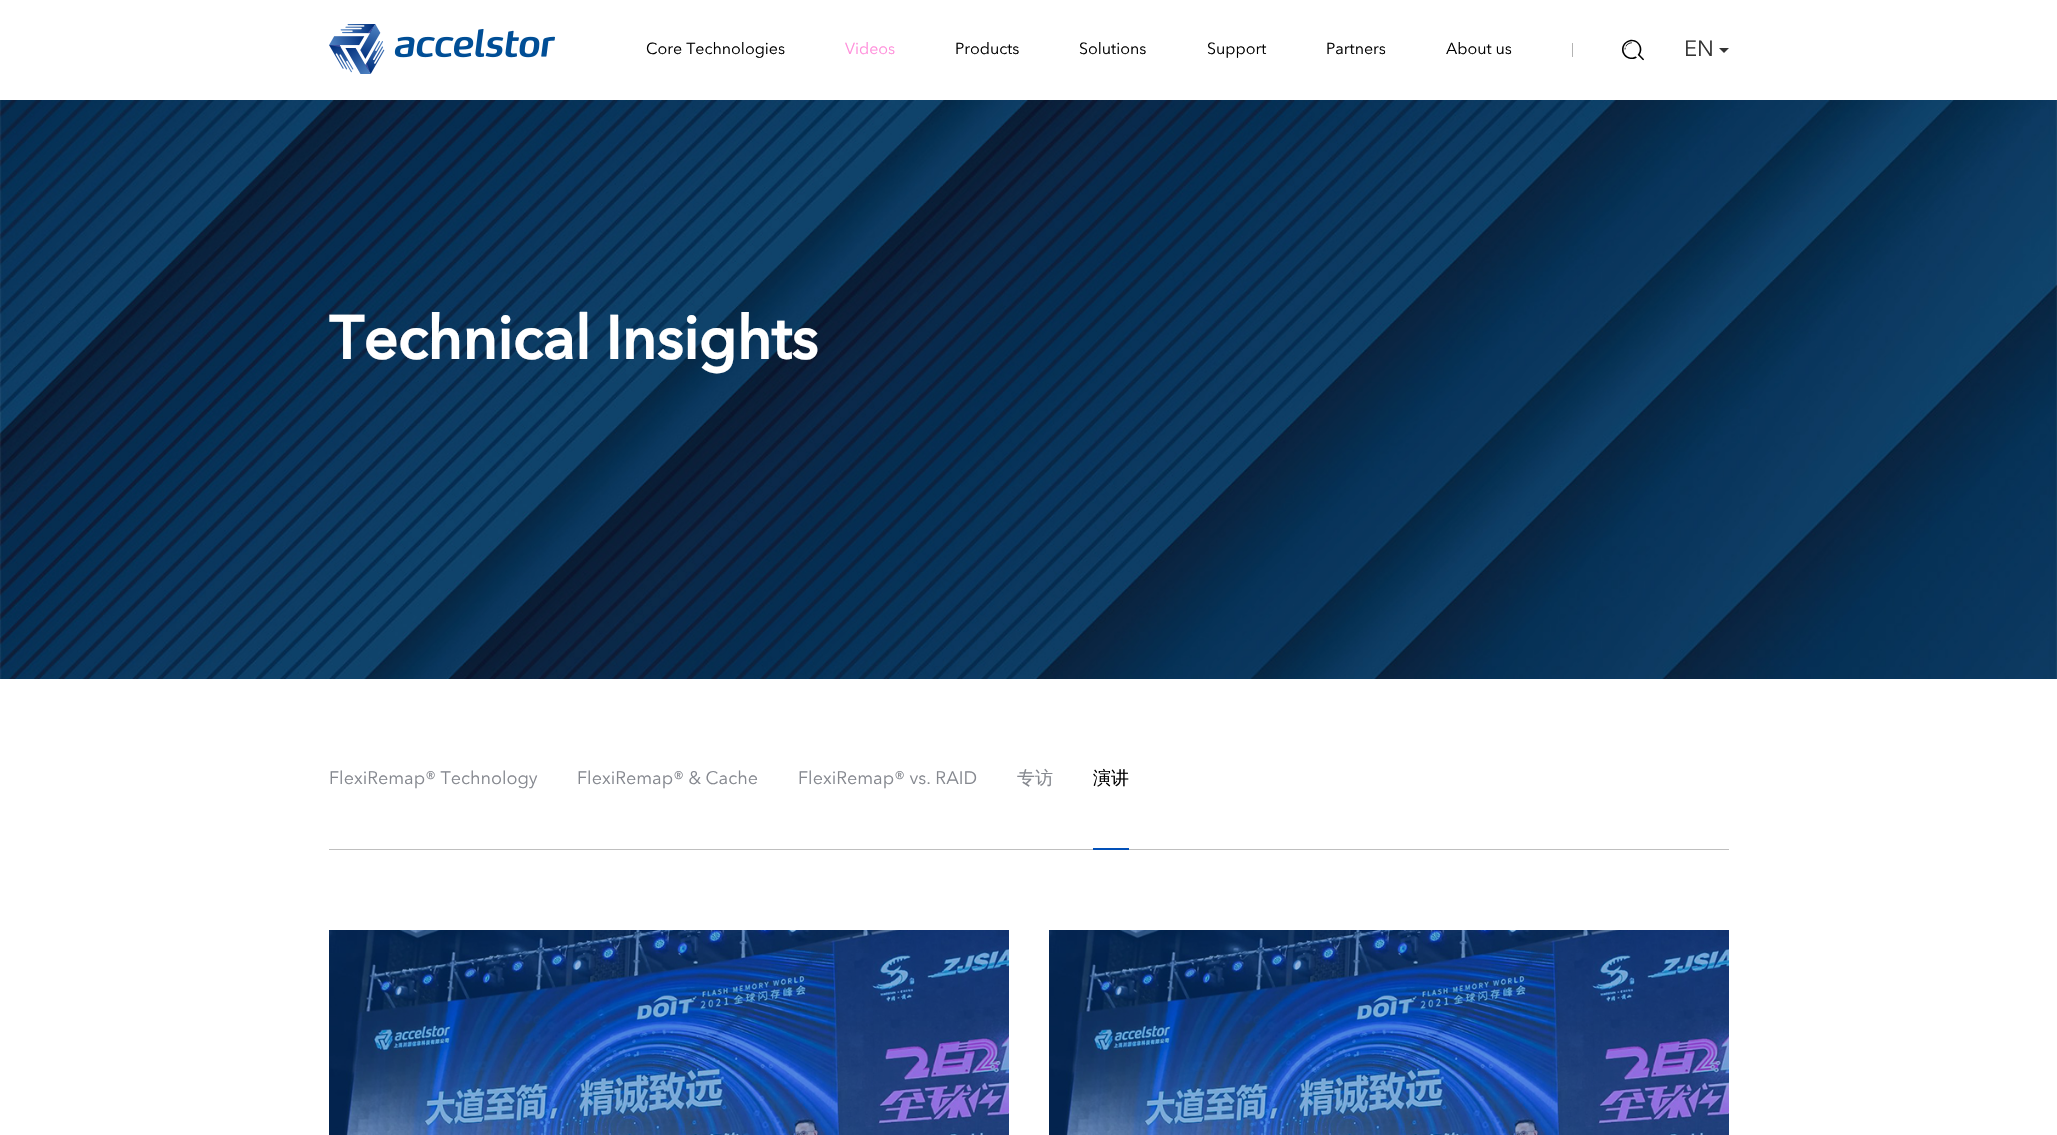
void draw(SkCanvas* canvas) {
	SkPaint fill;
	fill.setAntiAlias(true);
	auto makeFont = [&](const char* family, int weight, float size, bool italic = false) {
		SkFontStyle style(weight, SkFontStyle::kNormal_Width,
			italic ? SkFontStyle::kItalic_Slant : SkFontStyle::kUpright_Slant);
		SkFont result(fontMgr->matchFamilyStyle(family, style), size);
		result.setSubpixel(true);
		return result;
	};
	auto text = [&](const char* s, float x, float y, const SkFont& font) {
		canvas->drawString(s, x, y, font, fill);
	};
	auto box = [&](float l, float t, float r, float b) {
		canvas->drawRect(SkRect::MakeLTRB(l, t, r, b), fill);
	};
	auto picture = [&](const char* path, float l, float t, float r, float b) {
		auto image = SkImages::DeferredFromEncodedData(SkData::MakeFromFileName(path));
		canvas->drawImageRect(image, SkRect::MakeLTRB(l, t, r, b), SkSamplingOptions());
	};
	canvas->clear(0xFFFFFFFF);
	picture("image0.png", 329, 24, 555, 74);
	fill.setColor(0xFFB3B3B3);
	box(1572, 43, 1573, 57);
	picture("image1.png", 1622, 39, 1644, 61);
	fill.setColor(0xFF333333);
	canvas->drawPath(SkPathBuilder().moveTo(1719, 48).lineTo(1729, 48).lineTo(1724, 53).close().detach(), fill);
	picture("image2.png", 0, 100, 2057, 679);
	fill.setColor(0xFFBFBFBF);
	box(329, 849, 1729, 850);
	fill.setColor(0xFF0250B8);
	box(1093, 848, 1129, 850);
	picture("image3.png", 329, 930, 1009, 1135);
	picture("image3.png", 1049, 930, 1729, 1135);
	auto font1 = makeFont("Avenir Next", 400, 16);
	fill.setColor(0xFF000000);
	text("Core Technologies", 646, 54, font1);
	fill.setColor(0xFFFF8EDB);
	text("Videos", 845, 54, font1);
	fill.setColor(0xFF000000);
	text("Products", 955, 54, font1);
	text("Solutions", 1079, 54, font1);
	text("Support", 1207, 54, font1);
	text("Partners", 1326, 54, font1);
	text("About us", 1446, 54, font1);
	auto font2 = makeFont("Avenir Next", 400, 22);
	fill.setColor(0xFF333333);
	text("EN", 1684, 56, font2);
	auto font3 = makeFont("Avenir Next", 700, 60);
	fill.setColor(0xFFFFFFFF);
	text("Technical Insights", 329, 359, font3);
	auto font4 = makeFont("Avenir Next", 400, 18);
	fill.setColor(0xFF85888F);
	text("FlexiRemap® Technology", 329, 784, font4);
	text("FlexiRemap® & Cache", 577, 784, font4);
	text("FlexiRemap® vs. RAID", 798, 784, font4);
	auto font5 = makeFont("WenQuanYi Zen Hei", 500, 18);
	text("专访", 1017, 784, font5);
	fill.setColor(0xFF000000);
	text("演讲", 1093, 784, font5);
}
